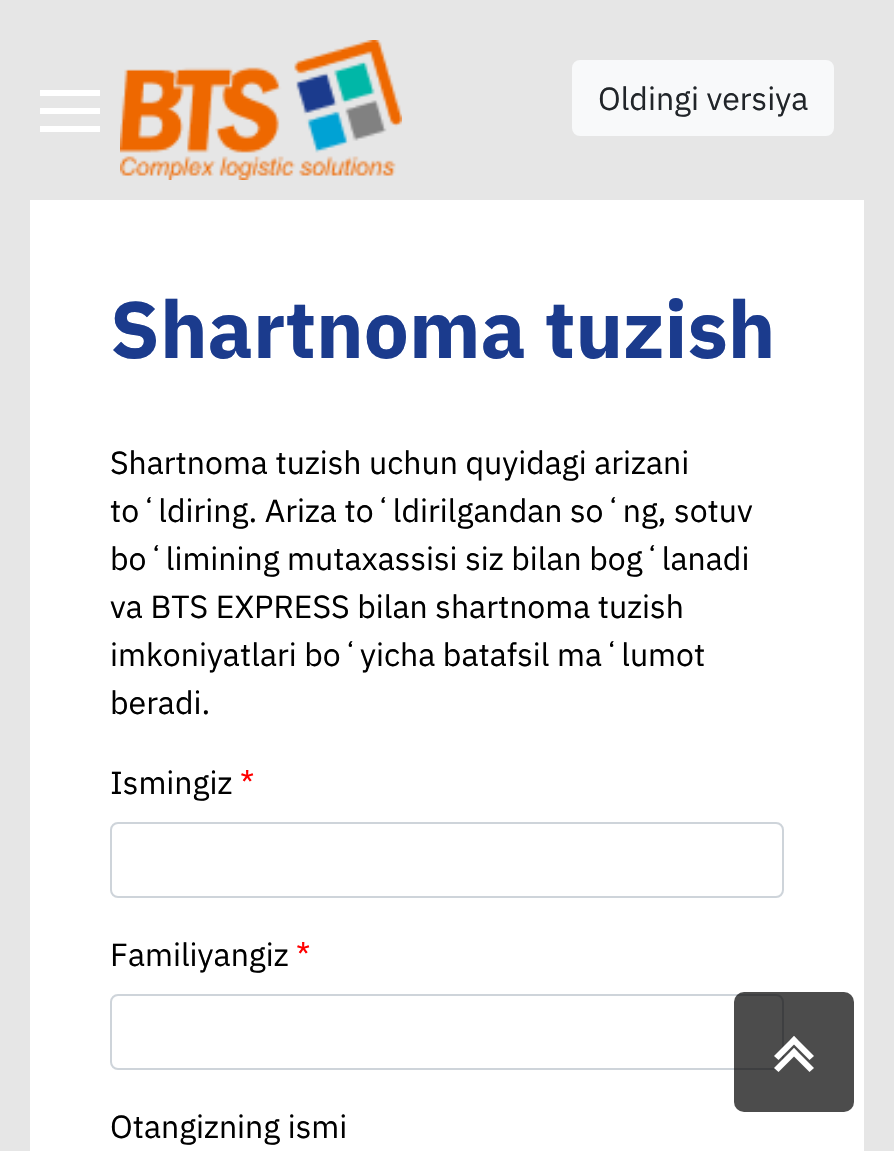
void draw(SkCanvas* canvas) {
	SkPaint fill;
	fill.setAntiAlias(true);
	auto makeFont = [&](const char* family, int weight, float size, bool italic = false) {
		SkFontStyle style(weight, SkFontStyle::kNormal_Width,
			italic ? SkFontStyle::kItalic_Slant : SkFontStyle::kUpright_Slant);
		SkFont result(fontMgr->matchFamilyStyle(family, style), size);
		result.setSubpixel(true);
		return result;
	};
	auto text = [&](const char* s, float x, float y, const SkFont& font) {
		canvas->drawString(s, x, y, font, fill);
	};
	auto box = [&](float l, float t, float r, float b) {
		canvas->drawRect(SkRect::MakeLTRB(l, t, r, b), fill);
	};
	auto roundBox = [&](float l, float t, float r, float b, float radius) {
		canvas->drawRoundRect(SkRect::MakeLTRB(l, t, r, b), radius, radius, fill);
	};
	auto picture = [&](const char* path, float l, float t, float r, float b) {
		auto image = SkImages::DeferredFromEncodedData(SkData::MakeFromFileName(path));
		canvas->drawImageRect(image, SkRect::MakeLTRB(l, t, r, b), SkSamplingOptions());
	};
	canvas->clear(0xFFE6E6E6);
	fill.setColor(0xFFFFFFFF);
	box(40, 90, 100, 96);
	box(40, 108, 100, 114);
	box(40, 126, 100, 132);
	picture("image0.png", 120, 40, 402, 180);
	fill.setColor(0xFFF8F9FA);
	canvas->drawRoundRect(SkRect::MakeLTRB(573, 61, 833, 135), 7, 7, fill);
	fill.setStyle(SkPaint::kStroke_Style);
	fill.setStrokeWidth(2);
	canvas->drawRoundRect(SkRect::MakeLTRB(573, 61, 833, 135), 7, 7, fill);
	fill.setStyle(SkPaint::kFill_Style);
	fill.setColor(0xFFFFFFFF);
	box(30, 200, 864, 1151);
	fill.setStyle(SkPaint::kStroke_Style);
	fill.setColor(0xFFCED4DA);
	canvas->drawRoundRect(SkRect::MakeLTRB(111, 823, 783, 897), 7, 7, fill);
	canvas->drawRoundRect(SkRect::MakeLTRB(111, 995, 783, 1069), 7, 7, fill);
	fill.setStyle(SkPaint::kFill_Style);
	fill.setColor(0xB3000000);
	roundBox(734, 992, 854, 1112, 10);
	fill.setColor(0xFFFFFFFF);
	canvas->drawPath(SkPathBuilder().moveTo(794, 1036).lineTo(814, 1056).lineTo(809.5f, 1060).lineTo(790, 1040.5f).close().detach(), fill);
	canvas->drawPath(SkPathBuilder().moveTo(794, 1036).lineTo(798, 1040.5f).lineTo(778.5f, 1060).lineTo(774, 1056).close().detach(), fill);
	canvas->drawPath(SkPathBuilder().moveTo(794, 1048).lineTo(814, 1068).lineTo(809.5f, 1072).lineTo(790, 1052.5f).close().detach(), fill);
	canvas->drawPath(SkPathBuilder().moveTo(794, 1048).lineTo(798, 1052.5f).lineTo(778.5f, 1072).lineTo(774, 1068).close().detach(), fill);
	auto font1 = makeFont("IBM Plex Sans", 400, 32);
	fill.setColor(0xFF212529);
	text("Oldingi versiya", 598, 110, font1);
	auto font2 = makeFont("IBM Plex Sans", 700, 80);
	fill.setColor(0xFF1B3B8D);
	text("Shartnoma tuzish", 110, 358, font2);
	fill.setColor(0xFF000000);
	text("Shartnoma tuzish uchun quyidagi arizani", 110, 474, font1);
	text("toʻldiring. Ariza toʻldirilgandan soʻng, sotuv", 110, 522, font1);
	text("boʻlimining mutaxassisi siz bilan bogʻlanadi", 110, 570, font1);
	text("va BTS EXPRESS bilan shartnoma tuzish", 110, 618, font1);
	text("imkoniyatlari boʻyicha batafsil maʻlumot", 110, 666, font1);
	text("beradi.", 110, 714, font1);
	text("Ismingiz", 110, 794, font1);
	fill.setColor(0xFFFF0000);
	text("*", 240, 794, font1);
	fill.setColor(0xFF000000);
	text("Familiyangiz", 110, 966, font1);
	fill.setColor(0xFFFF0000);
	text("*", 296, 966, font1);
	fill.setColor(0xFF000000);
	text("Otangizning ismi", 110, 1138, font1);
}
